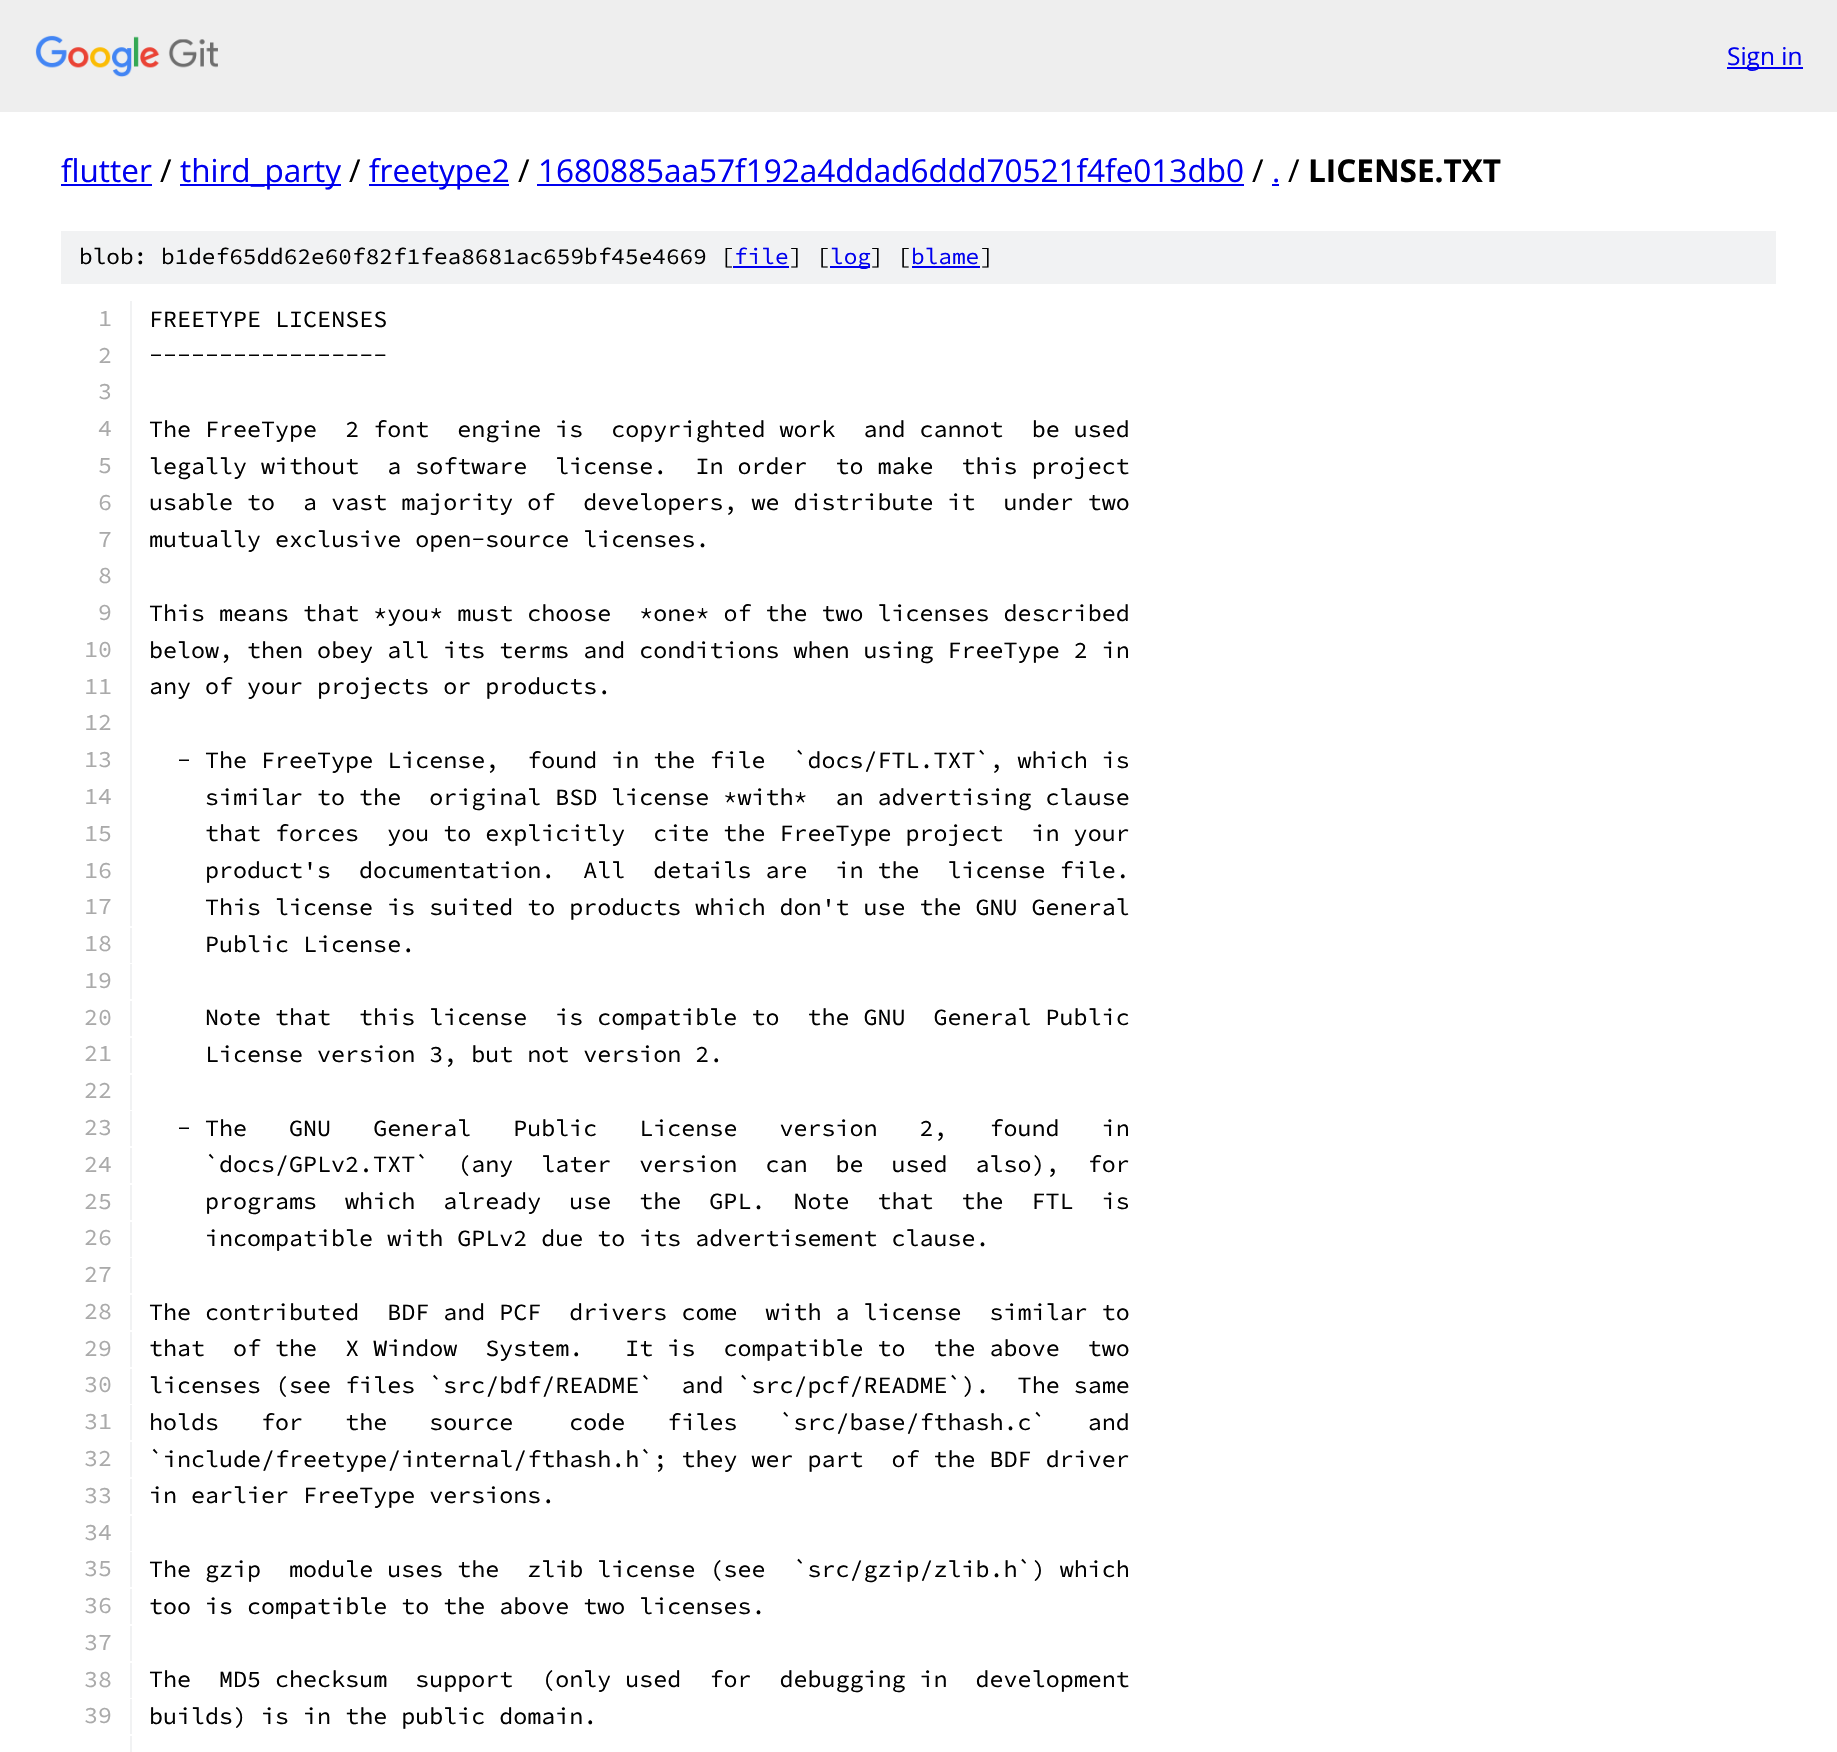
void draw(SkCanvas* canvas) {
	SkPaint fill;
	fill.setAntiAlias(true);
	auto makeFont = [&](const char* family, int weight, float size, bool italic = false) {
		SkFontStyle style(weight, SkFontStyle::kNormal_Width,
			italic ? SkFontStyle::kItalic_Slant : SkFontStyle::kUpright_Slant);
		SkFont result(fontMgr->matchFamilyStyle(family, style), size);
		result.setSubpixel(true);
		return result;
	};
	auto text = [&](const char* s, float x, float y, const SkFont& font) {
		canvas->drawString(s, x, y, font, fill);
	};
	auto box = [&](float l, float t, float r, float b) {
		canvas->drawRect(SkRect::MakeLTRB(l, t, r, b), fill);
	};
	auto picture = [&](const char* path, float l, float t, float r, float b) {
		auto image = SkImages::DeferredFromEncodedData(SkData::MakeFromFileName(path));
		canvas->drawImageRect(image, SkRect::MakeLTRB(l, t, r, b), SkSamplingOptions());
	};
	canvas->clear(0xFFFFFFFF);
	fill.setColor(0xFFEEEEEE);
	box(0, 0, 1837, 112);
	picture("image0.png", 35, 35, 218, 77);
	fill.setColor(0xFF0000EE);
	box(1727, 67, 1803, 69);
	box(61, 184, 152, 186);
	box(180, 184, 341, 186);
	box(369, 184, 509, 186);
	box(537, 184, 1244, 186);
	box(1272, 184, 1279, 186);
	fill.setColor(0xFFF1F2F3);
	box(61, 231, 1776, 284);
	fill.setColor(0xFF0000EE);
	box(733, 266, 789, 268);
	box(830, 266, 870, 268);
	box(912, 266, 980, 268);
	fill.setColor(0xFFF1F2F3);
	box(130, 301, 132, 926);
	box(130, 928, 132, 963);
	box(130, 964, 132, 999);
	box(130, 1001, 132, 1036);
	box(130, 1038, 132, 1073);
	box(130, 1075, 132, 1110);
	box(130, 1111, 132, 1146);
	box(130, 1148, 132, 1183);
	box(130, 1185, 132, 1220);
	box(130, 1222, 132, 1257);
	box(130, 1258, 132, 1293);
	box(130, 1295, 132, 1330);
	box(130, 1332, 132, 1367);
	box(130, 1369, 132, 1404);
	box(130, 1405, 132, 1440);
	box(130, 1442, 132, 1477);
	box(130, 1479, 132, 1514);
	box(130, 1516, 132, 1551);
	box(130, 1552, 132, 1587);
	box(130, 1589, 132, 1624);
	box(130, 1626, 132, 1661);
	box(130, 1663, 132, 1698);
	box(130, 1699, 132, 1734);
	box(130, 1736, 132, 1752);
	auto font1 = makeFont("Open Sans", 400, 24.5f);
	fill.setColor(0xFF0000EE);
	text("Sign in", 1727, 65, font1);
	auto font2 = makeFont("Open Sans", 400, 31.5f);
	text("flutter", 61, 182, font2);
	fill.setColor(0xFF000000);
	text("/", 160, 182, font2);
	fill.setColor(0xFF0000EE);
	text("third_party", 180, 182, font2);
	fill.setColor(0xFF000000);
	text("/", 349, 182, font2);
	fill.setColor(0xFF0000EE);
	text("freetype2", 369, 182, font2);
	fill.setColor(0xFF000000);
	text("/", 518, 182, font2);
	fill.setColor(0xFF0000EE);
	text("1680885aa57f192a4ddad6ddd70521f4fe013db0", 538, 182, font2);
	fill.setColor(0xFF000000);
	text("/", 1252, 182, font2);
	fill.setColor(0xFF0000EE);
	text(".", 1272, 182, font2);
	fill.setColor(0xFF000000);
	text("/", 1288, 182, font2);
	auto font3 = makeFont("Open Sans", 700, 31.5f);
	text("LICENSE.TXT", 1308, 182, font3);
	auto font4 = makeFont("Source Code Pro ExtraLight", 200, 22.75f);
	text("blob: b1def65dd62e60f82f1fea8681ac659bf45e4669 [", 79, 264, font4);
	fill.setColor(0xFF0000EE);
	text("file", 734, 264, font4);
	fill.setColor(0xFF000000);
	text("] [", 789, 264, font4);
	fill.setColor(0xFF0000EE);
	text("log", 830, 264, font4);
	fill.setColor(0xFF000000);
	text("] [", 870, 264, font4);
	fill.setColor(0xFF0000EE);
	text("blame", 911, 264, font4);
	fill.setColor(0xFF000000);
	text("]", 980, 264, font4);
	auto font5 = makeFont("Source Code Pro ExtraLight", 200, 23.35f);
	fill.setColor(0xFFAAAAAA);
	text("1", 98, 326, font5);
	fill.setColor(0xFF000000);
	text("FREETYPE LICENSES", 149, 327, font5);
	fill.setColor(0xFFAAAAAA);
	text("2", 98, 363, font5);
	fill.setColor(0xFF000000);
	text("-----------------", 149, 363, font5);
	fill.setColor(0xFFAAAAAA);
	text("3", 98, 399, font5);
	text("4", 98, 436, font5);
	fill.setColor(0xFF000000);
	text("The FreeType  2 font  engine is  copyrighted work  and cannot  be used", 149, 437, font5);
	fill.setColor(0xFFAAAAAA);
	text("5", 98, 473, font5);
	fill.setColor(0xFF000000);
	text("legally without  a software  license.  In order  to make  this project", 149, 474, font5);
	fill.setColor(0xFFAAAAAA);
	text("6", 98, 510, font5);
	fill.setColor(0xFF000000);
	text("usable to  a vast majority of  developers, we distribute it  under two", 149, 510, font5);
	fill.setColor(0xFFAAAAAA);
	text("7", 98, 547, font5);
	fill.setColor(0xFF000000);
	text("mutually exclusive open-source licenses.", 149, 547, font5);
	fill.setColor(0xFFAAAAAA);
	text("8", 98, 583, font5);
	text("9", 98, 620, font5);
	fill.setColor(0xFF000000);
	text("This means that *you* must choose  *one* of the two licenses described", 149, 621, font5);
	fill.setColor(0xFFAAAAAA);
	text("10", 84, 657, font5);
	fill.setColor(0xFF000000);
	text("below, then obey all its terms and conditions when using FreeType 2 in", 149, 658, font5);
	fill.setColor(0xFFAAAAAA);
	text("11", 84, 694, font5);
	fill.setColor(0xFF000000);
	text("any of your projects or products.", 149, 694, font5);
	fill.setColor(0xFFAAAAAA);
	text("12", 84, 730, font5);
	text("13", 84, 767, font5);
	fill.setColor(0xFF000000);
	text("- The FreeType License,  found in the file  `docs/FTL.TXT`, which is", 177, 768, font5);
	fill.setColor(0xFFAAAAAA);
	text("14", 84, 804, font5);
	fill.setColor(0xFF000000);
	text("similar to the  original BSD license *with*  an advertising clause", 205, 805, font5);
	fill.setColor(0xFFAAAAAA);
	text("15", 84, 841, font5);
	fill.setColor(0xFF000000);
	text("that forces  you to explicitly  cite the FreeType project  in your", 205, 841, font5);
	fill.setColor(0xFFAAAAAA);
	text("16", 84, 878, font5);
	fill.setColor(0xFF000000);
	text("product's  documentation.  All  details are  in the  license file.", 205, 878, font5);
	fill.setColor(0xFFAAAAAA);
	text("17", 84, 914, font5);
	fill.setColor(0xFF000000);
	text("This license is suited to products which don't use the GNU General", 205, 915, font5);
	fill.setColor(0xFFAAAAAA);
	text("18", 84, 951, font5);
	fill.setColor(0xFF000000);
	text("Public License.", 205, 952, font5);
	fill.setColor(0xFFAAAAAA);
	text("19", 84, 988, font5);
	text("20", 84, 1025, font5);
	fill.setColor(0xFF000000);
	text("Note that  this license  is compatible to  the GNU  General Public", 205, 1025, font5);
	fill.setColor(0xFFAAAAAA);
	text("21", 84, 1061, font5);
	fill.setColor(0xFF000000);
	text("License version 3, but not version 2.", 205, 1062, font5);
	fill.setColor(0xFFAAAAAA);
	text("22", 84, 1098, font5);
	text("23", 84, 1135, font5);
	fill.setColor(0xFF000000);
	text("- The   GNU   General   Public   License   version   2,   found   in", 177, 1136, font5);
	fill.setColor(0xFFAAAAAA);
	text("24", 84, 1172, font5);
	fill.setColor(0xFF000000);
	text("`docs/GPLv2.TXT`  (any  later  version  can  be  used  also),  for", 205, 1172, font5);
	fill.setColor(0xFFAAAAAA);
	text("25", 84, 1209, font5);
	fill.setColor(0xFF000000);
	text("programs  which  already  use  the  GPL.  Note  that  the  FTL  is", 205, 1209, font5);
	fill.setColor(0xFFAAAAAA);
	text("26", 84, 1245, font5);
	fill.setColor(0xFF000000);
	text("incompatible with GPLv2 due to its advertisement clause.", 205, 1246, font5);
	fill.setColor(0xFFAAAAAA);
	text("27", 84, 1282, font5);
	text("28", 84, 1319, font5);
	fill.setColor(0xFF000000);
	text("The contributed  BDF and PCF  drivers come  with a license  similar to", 149, 1320, font5);
	fill.setColor(0xFFAAAAAA);
	text("29", 84, 1356, font5);
	fill.setColor(0xFF000000);
	text("that  of the  X Window  System.   It is  compatible to  the above  two", 149, 1356, font5);
	fill.setColor(0xFFAAAAAA);
	text("30", 84, 1392, font5);
	fill.setColor(0xFF000000);
	text("licenses (see files `src/bdf/README`  and `src/pcf/README`).  The same", 149, 1393, font5);
	fill.setColor(0xFFAAAAAA);
	text("31", 84, 1429, font5);
	fill.setColor(0xFF000000);
	text("holds   for   the   source    code   files   `src/base/fthash.c`   and", 149, 1430, font5);
	fill.setColor(0xFFAAAAAA);
	text("32", 84, 1466, font5);
	fill.setColor(0xFF000000);
	text("`include/freetype/internal/fthash.h`; they wer part  of the BDF driver", 149, 1467, font5);
	fill.setColor(0xFFAAAAAA);
	text("33", 84, 1503, font5);
	fill.setColor(0xFF000000);
	text("in earlier FreeType versions.", 149, 1503, font5);
	fill.setColor(0xFFAAAAAA);
	text("34", 84, 1540, font5);
	text("35", 84, 1576, font5);
	fill.setColor(0xFF000000);
	text("The gzip  module uses the  zlib license (see  `src/gzip/zlib.h`) which", 149, 1577, font5);
	fill.setColor(0xFFAAAAAA);
	text("36", 84, 1613, font5);
	fill.setColor(0xFF000000);
	text("too is compatible to the above two licenses.", 149, 1614, font5);
	fill.setColor(0xFFAAAAAA);
	text("37", 84, 1650, font5);
	text("38", 84, 1687, font5);
	fill.setColor(0xFF000000);
	text("The  MD5 checksum  support  (only used  for  debugging in  development", 149, 1687, font5);
	fill.setColor(0xFFAAAAAA);
	text("39", 84, 1723, font5);
	fill.setColor(0xFF000000);
	text("builds) is in the public domain.", 149, 1724, font5);
}
